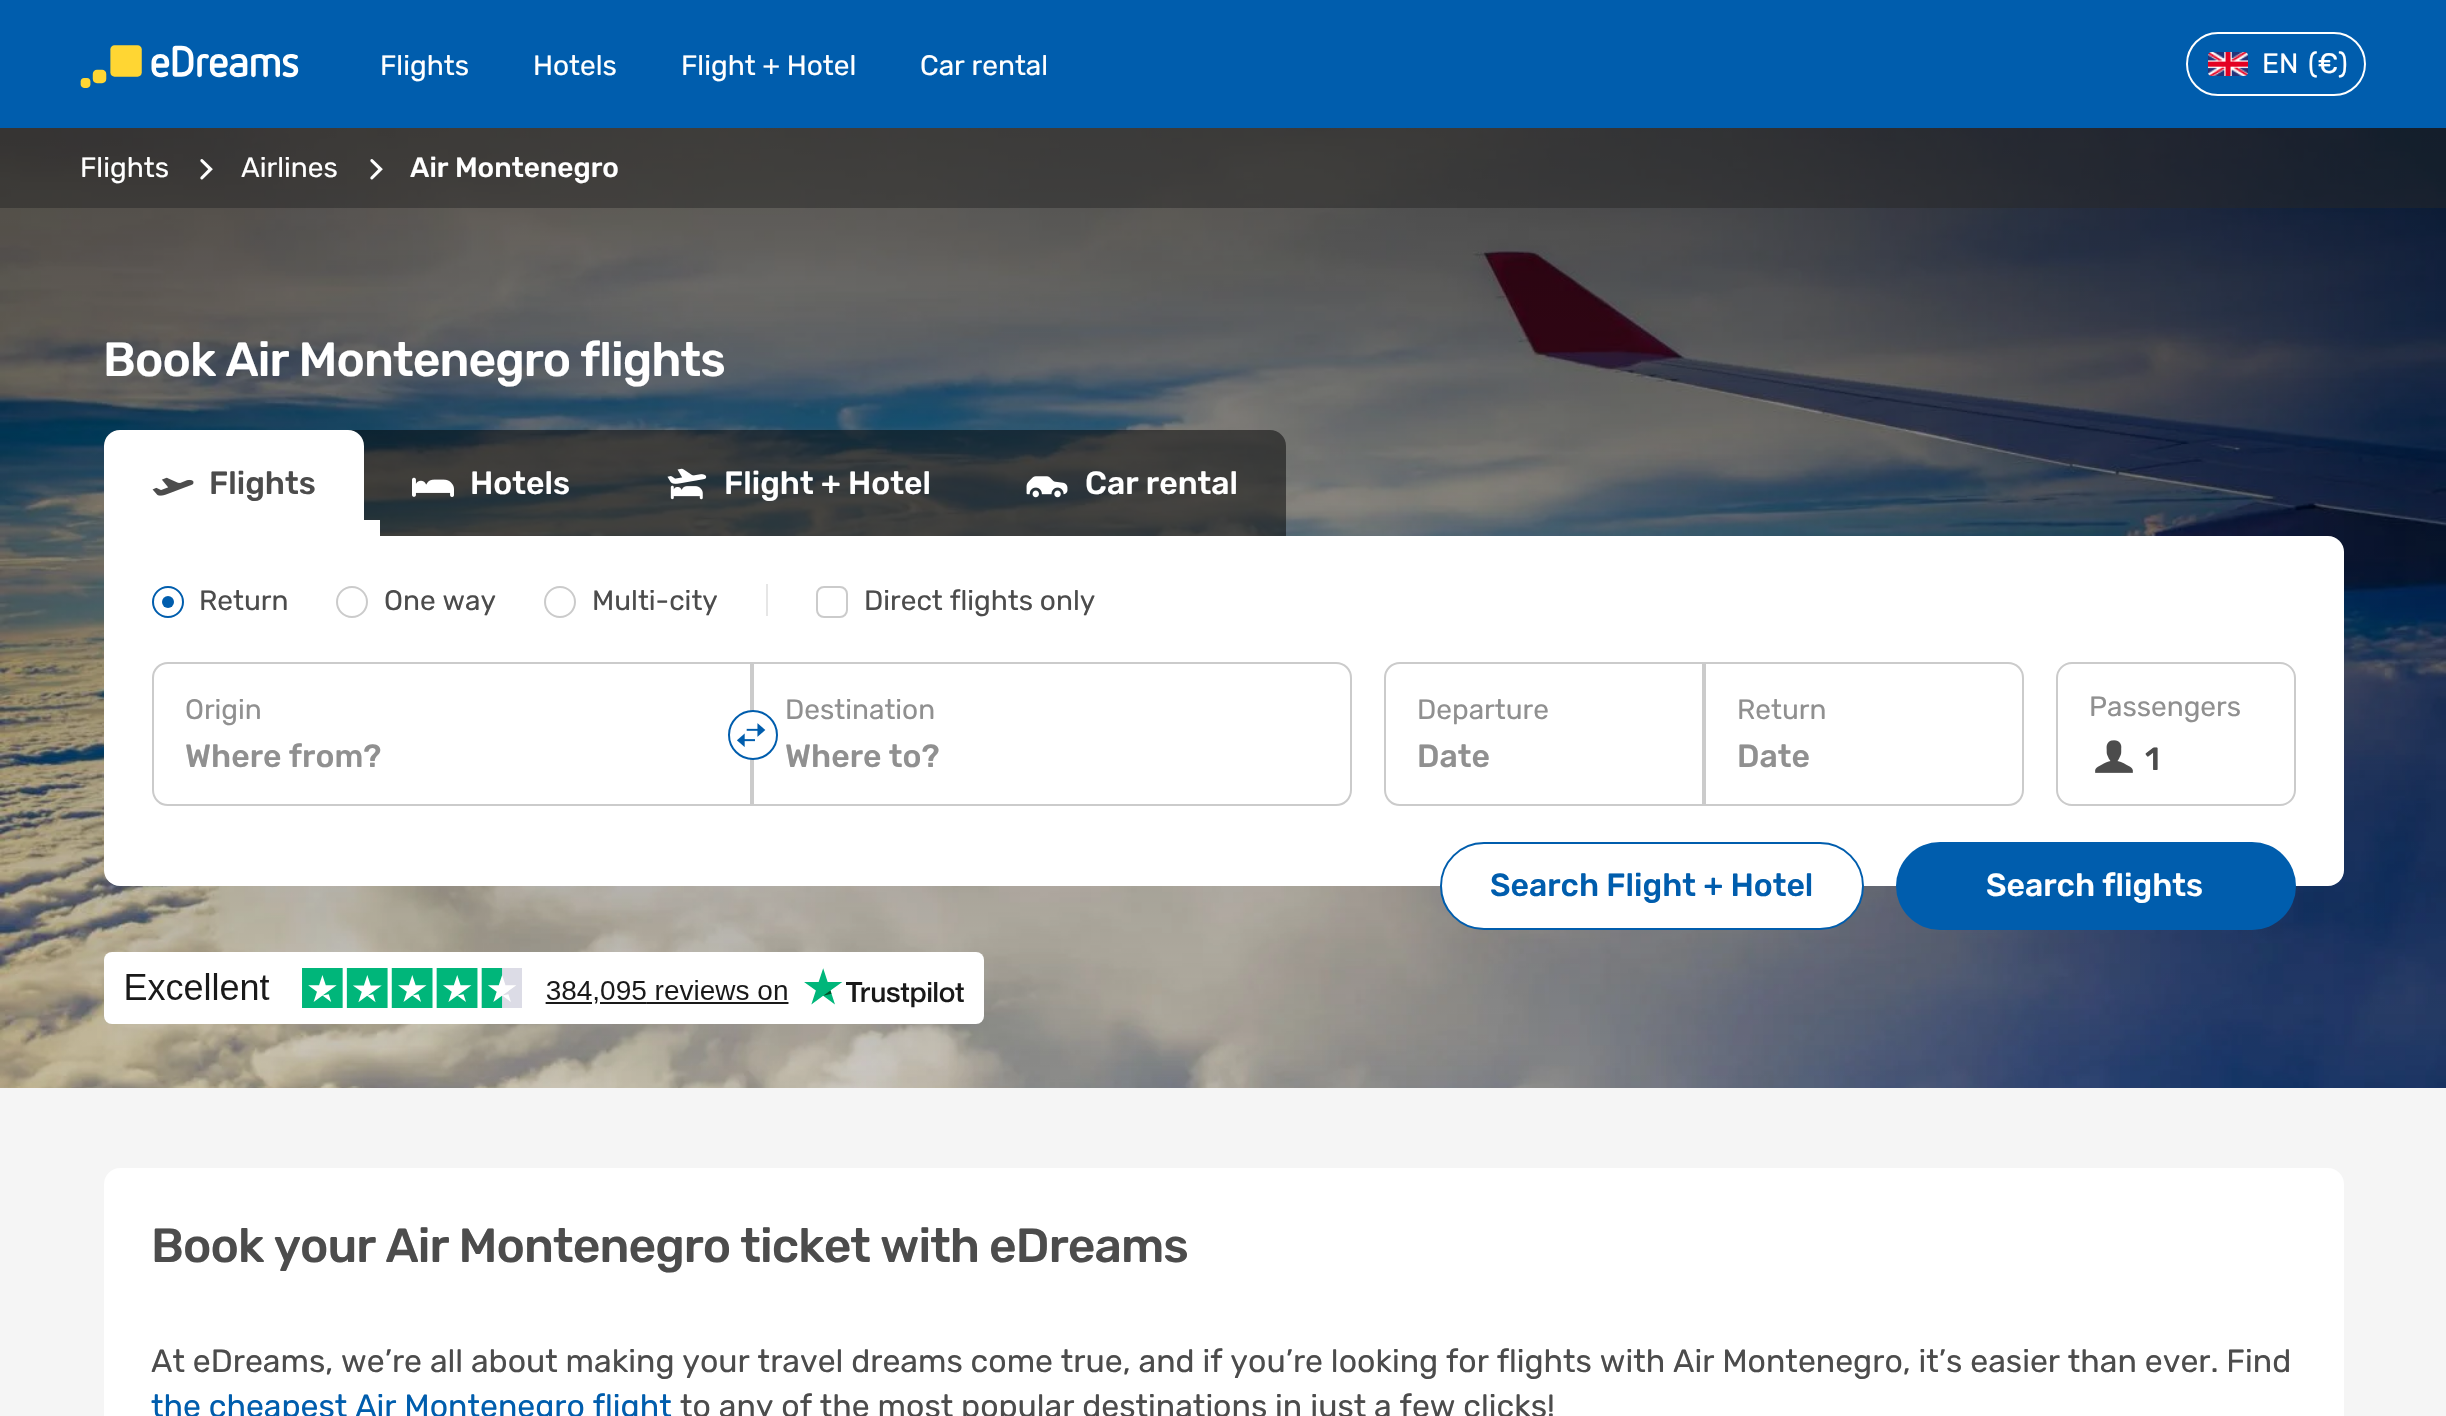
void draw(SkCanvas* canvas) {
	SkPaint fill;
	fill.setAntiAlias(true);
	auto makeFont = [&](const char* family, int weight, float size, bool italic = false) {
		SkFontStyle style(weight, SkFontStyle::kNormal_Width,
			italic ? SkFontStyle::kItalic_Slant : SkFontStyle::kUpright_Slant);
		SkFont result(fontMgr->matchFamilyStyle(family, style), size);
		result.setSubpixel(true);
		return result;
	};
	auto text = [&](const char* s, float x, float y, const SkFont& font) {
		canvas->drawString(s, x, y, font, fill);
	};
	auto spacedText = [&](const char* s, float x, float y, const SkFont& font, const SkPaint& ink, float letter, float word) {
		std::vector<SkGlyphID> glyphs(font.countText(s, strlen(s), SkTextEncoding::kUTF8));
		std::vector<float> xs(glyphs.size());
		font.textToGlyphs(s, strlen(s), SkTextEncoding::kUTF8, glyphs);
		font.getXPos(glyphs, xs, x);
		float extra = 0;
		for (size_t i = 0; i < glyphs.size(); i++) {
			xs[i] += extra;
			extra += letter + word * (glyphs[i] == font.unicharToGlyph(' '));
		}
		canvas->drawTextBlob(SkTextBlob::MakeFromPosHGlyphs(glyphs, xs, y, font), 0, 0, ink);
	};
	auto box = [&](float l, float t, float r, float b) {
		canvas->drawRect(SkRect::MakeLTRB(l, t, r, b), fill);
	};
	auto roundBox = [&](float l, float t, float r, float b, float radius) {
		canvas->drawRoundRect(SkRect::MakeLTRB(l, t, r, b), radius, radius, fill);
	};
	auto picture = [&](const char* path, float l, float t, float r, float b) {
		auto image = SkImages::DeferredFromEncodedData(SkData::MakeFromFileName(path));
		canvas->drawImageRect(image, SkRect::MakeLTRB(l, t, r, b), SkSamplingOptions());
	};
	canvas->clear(0xFFF5F5F5);
	fill.setColor(0xFF005DAD);
	box(0, 0, 2446, 128);
	picture("image0.png", 80, 45, 299, 88);
	fill.setStyle(SkPaint::kStroke_Style);
	fill.setStrokeWidth(2);
	fill.setColor(0xFFFFFFFF);
	canvas->drawRoundRect(SkRect::MakeLTRB(2187, 33, 2365, 95), 31, 31, fill);
	picture("image1.png", 2208, 52, 2248, 76);
	picture("image2.png", 0, 128, 2446, 1088);
	fill.setStyle(SkPaint::kFill_Style);
	fill.setColor(0x80262626);
	box(0, 128, 2446, 208);
	picture("image3.png", 200, 159, 213, 180);
	picture("image4.png", 370, 159, 383, 180);
	fill.setColor(0x80000000);
	canvas->drawPath(SkPathBuilder().moveTo(120, 430).lineTo(1270, 430).cubicTo(1279, 430, 1286, 437, 1286, 446).lineTo(1286, 552).lineTo(104, 552).lineTo(104, 446).cubicTo(104, 437, 111, 430, 120, 430).close().detach(), fill);
	fill.setColor(0xFFFFFFFF);
	canvas->drawPath(SkPathBuilder().moveTo(120, 430).lineTo(348, 430).cubicTo(357, 430, 364, 437, 364, 446).lineTo(364, 552).lineTo(104, 552).lineTo(104, 446).cubicTo(104, 437, 111, 430, 120, 430).close().detach(), fill);
	picture("image5.png", 152, 477, 194, 496);
	box(364, 520, 380, 536);
	picture("image6.png", 412, 477, 454, 497);
	picture("image7.png", 667, 468, 707, 500);
	picture("image8.png", 1026, 476, 1068, 498);
	roundBox(104, 536, 2344, 886, 16);
	fill.setStyle(SkPaint::kStroke_Style);
	fill.setColor(0xFF005DAD);
	canvas->drawCircle(168, 602, 15, fill);
	fill.setStyle(SkPaint::kFill_Style);
	canvas->drawCircle(168, 602, 6, fill);
	fill.setStyle(SkPaint::kStroke_Style);
	fill.setColor(0xFFCBCBCB);
	canvas->drawCircle(352, 602, 15, fill);
	canvas->drawCircle(560, 602, 15, fill);
	fill.setStyle(SkPaint::kFill_Style);
	fill.setColor(0xFFE6E6E6);
	box(766, 584, 768, 616);
	fill.setStyle(SkPaint::kStroke_Style);
	fill.setColor(0xFFCBCBCB);
	canvas->drawRoundRect(SkRect::MakeLTRB(817, 587, 847, 617), 7, 7, fill);
	canvas->drawPath(SkPathBuilder().moveTo(168, 663).lineTo(751, 663).lineTo(751, 805).lineTo(168, 805).cubicTo(159.5f, 805, 153, 798.5f, 153, 790).lineTo(153, 678).cubicTo(153, 669.5f, 159.5f, 663, 168, 663).close().detach(), fill);
	canvas->drawPath(SkPathBuilder().moveTo(753, 663).lineTo(1336, 663).cubicTo(1344.5f, 663, 1351, 669.5f, 1351, 678).lineTo(1351, 790).cubicTo(1351, 798.5f, 1344.5f, 805, 1336, 805).lineTo(753, 805).close().detach(), fill);
	fill.setStyle(SkPaint::kFill_Style);
	fill.setColor(0xFFFFFFFF);
	canvas->drawCircle(753, 735, 24, fill);
	fill.setStyle(SkPaint::kStroke_Style);
	fill.setColor(0xFF005DAD);
	canvas->drawCircle(753, 735, 24, fill);
	picture("image9.png", 737, 723, 766, 747);
	fill.setColor(0xFFCBCBCB);
	canvas->drawPath(SkPathBuilder().moveTo(1400, 663).lineTo(1703, 663).lineTo(1703, 805).lineTo(1400, 805).cubicTo(1391.5f, 805, 1385, 798.5f, 1385, 790).lineTo(1385, 678).cubicTo(1385, 669.5f, 1391.5f, 663, 1400, 663).close().detach(), fill);
	canvas->drawPath(SkPathBuilder().moveTo(1705, 663).lineTo(2008, 663).cubicTo(2016.5f, 663, 2023, 669.5f, 2023, 678).lineTo(2023, 790).cubicTo(2023, 798.5f, 2016.5f, 805, 2008, 805).lineTo(1705, 805).close().detach(), fill);
	canvas->drawRoundRect(SkRect::MakeLTRB(2057, 663, 2295, 805), 15, 15, fill);
	picture("image10.png", 2095, 740, 2133, 773);
	fill.setStyle(SkPaint::kFill_Style);
	fill.setColor(0xFFFFFFFF);
	canvas->drawRoundRect(SkRect::MakeLTRB(1441, 843, 1863, 929), 43, 43, fill);
	fill.setStyle(SkPaint::kStroke_Style);
	fill.setColor(0xFF005DAD);
	canvas->drawRoundRect(SkRect::MakeLTRB(1441, 843, 1863, 929), 43, 43, fill);
	fill.setStyle(SkPaint::kFill_Style);
	roundBox(1896, 842, 2296, 930, 44);
	fill.setColor(0xFFFFFFFF);
	roundBox(104, 952, 984, 1024, 8);
	picture("image11.png", 126, 968, 964, 1008);
	roundBox(104, 1168, 2344, 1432, 16);
	auto font1 = makeFont("Rubik", 400, 28);
	text("Flights", 380, 75, font1);
	text("Hotels", 533, 75, font1);
	text("Flight + Hotel", 681, 75, font1);
	text("Car rental", 920, 75, font1);
	text("EN", 2262, 73, font1);
	text("(€)", 2308, 73, font1);
	text("Flights", 80, 177, font1);
	text("Airlines", 241, 177, font1);
	auto font2 = makeFont("Rubik", 500, 28);
	text("Air Montenegro", 410, 177, font2);
	auto font3 = makeFont("Rubik", 500, 48);
	spacedText("Book Air Montenegro flights", 103, 376, font3, fill, -0.95f, 0);
	auto font4 = makeFont("Rubik", 500, 32);
	fill.setColor(0xFF4C4C4C);
	text("Flights", 209, 494, font4);
	fill.setColor(0xFFFFFFFF);
	text("Hotels", 470, 494, font4);
	text("Flight + Hotel", 724, 494, font4);
	text("Car rental", 1085, 494, font4);
	fill.setColor(0xFF4C4C4C);
	text("Return", 199, 610, font1);
	text("One way", 384, 610, font1);
	text("Multi-city", 592, 610, font1);
	text("Direct flights only", 864, 610, font1);
	fill.setColor(0xFF909090);
	text("Origin", 185, 719, font1);
	text("Where from?", 185, 767, font4);
	text("Destination", 785, 719, font1);
	text("Where to?", 785, 767, font4);
	text("Departure", 1417, 719, font1);
	text("Date", 1417, 767, font4);
	text("Return", 1737, 719, font1);
	text("Date", 1737, 767, font4);
	text("Passengers", 2089, 716, font1);
	fill.setColor(0xFF4C4C4C);
	text("1", 2145, 770, font4);
	fill.setColor(0xFF005DAD);
	text("Search Flight + Hotel", 1490, 896, font4);
	fill.setColor(0xFFFFFFFF);
	text("Search flights", 1986, 896, font4);
	fill.setColor(0xFF4C4C4C);
	spacedText("Book your Air Montenegro ticket with eDreams", 151, 1262, font3, fill, -0.95f, 0);
	auto font5 = makeFont("Rubik", 400, 32);
	text("At eDreams, we’re all about making your travel dreams come true, and if you’re looking for flights with Air Montenegro, it’s easier than ever. Find", 151, 1372, font5);
	fill.setColor(0xFF005DAD);
	text("the cheapest Air Montenegro flight", 151, 1417, font5);
	fill.setColor(0xFF4C4C4C);
	text("to any of the most popular destinations in just a few clicks!", 680, 1417, font5);
}
